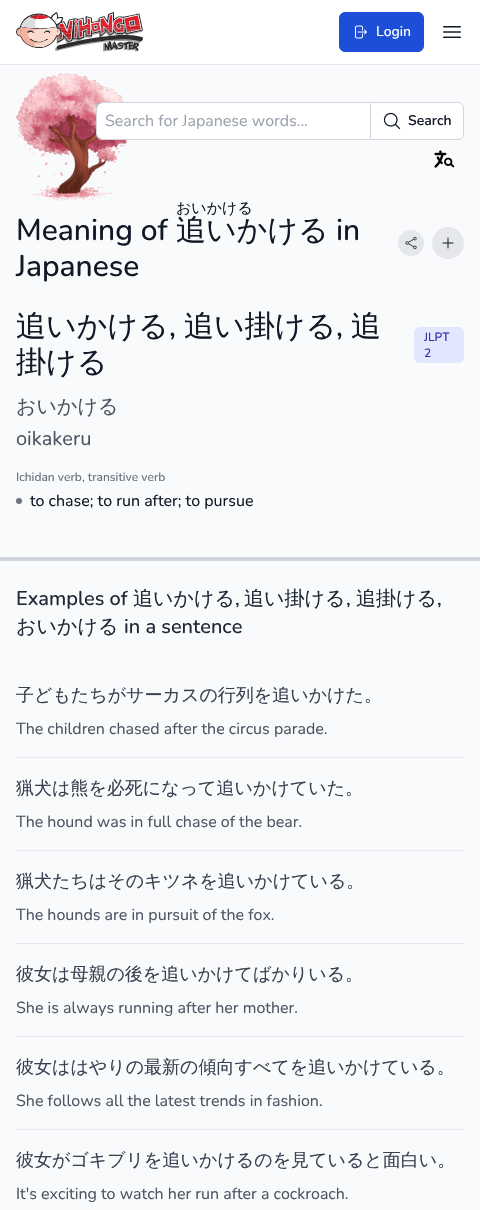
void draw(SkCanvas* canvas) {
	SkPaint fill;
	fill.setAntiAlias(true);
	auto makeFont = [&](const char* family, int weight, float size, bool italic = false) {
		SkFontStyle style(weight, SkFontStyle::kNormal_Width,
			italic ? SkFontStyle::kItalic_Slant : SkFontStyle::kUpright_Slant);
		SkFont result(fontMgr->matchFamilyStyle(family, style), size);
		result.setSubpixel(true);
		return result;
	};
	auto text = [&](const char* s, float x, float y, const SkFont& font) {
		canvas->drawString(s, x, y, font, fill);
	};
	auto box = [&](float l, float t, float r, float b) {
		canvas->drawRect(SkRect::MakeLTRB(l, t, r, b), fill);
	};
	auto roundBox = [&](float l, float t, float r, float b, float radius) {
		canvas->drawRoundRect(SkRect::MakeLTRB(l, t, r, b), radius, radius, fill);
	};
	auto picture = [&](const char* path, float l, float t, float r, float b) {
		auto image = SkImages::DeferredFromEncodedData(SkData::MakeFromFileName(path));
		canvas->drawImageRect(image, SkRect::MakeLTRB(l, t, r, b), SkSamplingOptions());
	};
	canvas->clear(0xFFF9FAFB);
	fill.setColor(0xFFFFFFFF);
	box(0, 0, 480, 64);
	fill.setColor(0xFFE5E7EB);
	box(0, 64, 480, 65);
	picture("image0.png", 16, 12, 143, 52);
	fill.setColor(0xFF1D4ED8);
	canvas->drawRoundRect(SkRect::MakeLTRB(339.5f, 12.5f, 423.5f, 51.5f), 5.5f, 5.5f, fill);
	fill.setStyle(SkPaint::kStroke_Style);
	fill.setStrokeWidth(1);
	canvas->drawRoundRect(SkRect::MakeLTRB(339.5f, 12.5f, 423.5f, 51.5f), 5.5f, 5.5f, fill);
	picture("image1.png", 355, 25, 367, 39);
	picture("image2.png", 443, 26, 461, 38);
	picture("image3.png", 16, 73, 128, 201);
	fill.setStyle(SkPaint::kFill_Style);
	fill.setColor(0xFFFFFFFF);
	canvas->drawPath(SkPathBuilder().moveTo(102, 102.5f).lineTo(370.5f, 102.5f).lineTo(370.5f, 139.5f).lineTo(102, 139.5f).cubicTo(99, 139.5f, 96.5f, 137, 96.5f, 134).lineTo(96.5f, 108).cubicTo(96.5f, 105, 99, 102.5f, 102, 102.5f).close().detach(), fill);
	fill.setStyle(SkPaint::kStroke_Style);
	fill.setColor(0xFF6B7280);
	canvas->drawPath(SkPathBuilder().moveTo(102, 102.5f).lineTo(370.5f, 102.5f).lineTo(370.5f, 139.5f).lineTo(102, 139.5f).cubicTo(99, 139.5f, 96.5f, 137, 96.5f, 134).lineTo(96.5f, 108).cubicTo(96.5f, 105, 99, 102.5f, 102, 102.5f).close().detach(), fill);
	fill.setColor(0xFFD1D5DB);
	canvas->drawPath(SkPathBuilder().moveTo(102, 102.5f).lineTo(370.5f, 102.5f).lineTo(370.5f, 139.5f).lineTo(102, 139.5f).cubicTo(99, 139.5f, 96.5f, 137, 96.5f, 134).lineTo(96.5f, 108).cubicTo(96.5f, 105, 99, 102.5f, 102, 102.5f).close().detach(), fill);
	fill.setStyle(SkPaint::kFill_Style);
	fill.setColor(0xFFFFFFFF);
	canvas->drawPath(SkPathBuilder().moveTo(370, 102).lineTo(458, 102).cubicTo(461.5f, 102, 464, 104.5f, 464, 108).lineTo(464, 134).cubicTo(464, 137.5f, 461.5f, 140, 458, 140).lineTo(370, 140).close().detach(), fill);
	fill.setStyle(SkPaint::kStroke_Style);
	fill.setColor(0xFFD1D5DB);
	canvas->drawPath(SkPathBuilder().moveTo(370.5f, 102.5f).lineTo(458, 102.5f).cubicTo(461, 102.5f, 463.5f, 105, 463.5f, 108).lineTo(463.5f, 134).cubicTo(463.5f, 137, 461, 139.5f, 458, 139.5f).lineTo(370.5f, 139.5f).close().detach(), fill);
	picture("image4.png", 383, 112, 401, 130);
	picture("image5.png", 434, 150, 455, 168);
	fill.setStyle(SkPaint::kFill_Style);
	fill.setColor(0xFFE5E7EB);
	canvas->drawCircle(411, 243, 13, fill);
	picture("image6.png", 405, 236, 417, 250);
	canvas->drawCircle(448, 243, 16, fill);
	picture("image7.png", 442, 237, 454, 249);
	fill.setColor(0xFFE0E7FF);
	roundBox(414, 327, 464, 363, 6);
	fill.setColor(0xFF6B7280);
	canvas->drawCircle(19, 501, 3, fill);
	fill.setColor(0xFFD1D5DB);
	box(0, 557, 480, 561);
	fill.setColor(0xFFE5E7EB);
	box(16, 757, 464, 758);
	box(16, 850, 464, 851);
	box(16, 943, 464, 944);
	box(16, 1036, 464, 1037);
	box(16, 1129, 464, 1130);
	auto font1 = makeFont("Nunito", 500, 14);
	fill.setColor(0xFFFFFFFF);
	text("Login", 376, 36, font1);
	auto font2 = makeFont("Nunito", 400, 16);
	fill.setColor(0xFF9CA3AF);
	text("Search for Japanese words...", 105, 126, font2);
	auto font3 = makeFont("Nunito", 600, 14);
	fill.setColor(0xFF111827);
	text("Search", 408, 125, font3);
	auto font4 = makeFont("Nunito", 500, 30);
	text("Meaning of", 16, 240, font4);
	auto font5 = makeFont("WenQuanYi Zen Hei", 500, 15);
	text("おいかける", 176, 213, font5);
	auto font6 = makeFont("WenQuanYi Zen Hei", 500, 30);
	text("追いかける", 176, 240, font6);
	text("in", 336, 240, font4);
	text("Japanese", 16, 276, font4);
	text("追いかける", 16, 336, font6);
	text(",", 169, 336, font4);
	text("追い掛ける", 184, 336, font6);
	text(",", 336, 336, font4);
	text("追", 351, 336, font6);
	text("掛ける", 16, 372, font6);
	auto font7 = makeFont("Nunito", 500, 12);
	fill.setColor(0xFF3730A3);
	text("JLPT", 424, 341, font7);
	text("2", 424, 357, font7);
	auto font8 = makeFont("WenQuanYi Zen Hei", 500, 20);
	fill.setColor(0xFF4B5563);
	text("おいかける", 16, 413, font8);
	auto font9 = makeFont("Nunito", 400, 20);
	text("oikakeru", 16, 445, font9);
	fill.setColor(0xFF6B7280);
	text("Ichidan verb, transitive verb", 16, 481, font7);
	fill.setColor(0xFF111827);
	text("to chase; to run after; to pursue", 30, 506, font2);
	auto font10 = makeFont("Nunito", 500, 20);
	fill.setColor(0xFF1F2937);
	text("Examples of", 16, 605, font10);
	text("追いかける", 133, 605, font8);
	text(",", 235, 605, font10);
	text("追い掛ける", 244, 605, font8);
	text(",", 346, 605, font10);
	text("追掛ける", 356, 605, font8);
	text(",", 437, 605, font10);
	text("おいかける", 16, 633, font8);
	text("in a sentence", 124, 633, font10);
	auto font11 = makeFont("WenQuanYi Zen Hei", 500, 18);
	fill.setColor(0xFF374151);
	text("子どもたちがサーカスの行列を追いかけた。", 16, 701, font11);
	fill.setColor(0xFF4B5563);
	text("The children chased after the circus parade.", 16, 734, font2);
	fill.setColor(0xFF374151);
	text("猟犬は熊を必死になって追いかけていた。", 16, 794, font11);
	fill.setColor(0xFF4B5563);
	text("The hound was in full chase of the bear.", 16, 827, font2);
	fill.setColor(0xFF374151);
	text("猟犬たちはそのキツネを追いかけている。", 16, 887, font11);
	fill.setColor(0xFF4B5563);
	text("The hounds are in pursuit of the fox.", 16, 920, font2);
	fill.setColor(0xFF374151);
	text("彼女は母親の後を追いかけてばかりいる。", 16, 980, font11);
	fill.setColor(0xFF4B5563);
	text("She is always running after her mother.", 16, 1013, font2);
	fill.setColor(0xFF374151);
	text("彼女ははやりの最新の傾向すべてを追いかけている。", 16, 1073, font11);
	fill.setColor(0xFF4B5563);
	text("She follows all the latest trends in fashion.", 16, 1106, font2);
	fill.setColor(0xFF374151);
	text("彼女がゴキブリを追いかけるのを見ていると面白い。", 16, 1166, font11);
	fill.setColor(0xFF4B5563);
	text("It's exciting to watch her run after a cockroach.", 16, 1199, font2);
}
